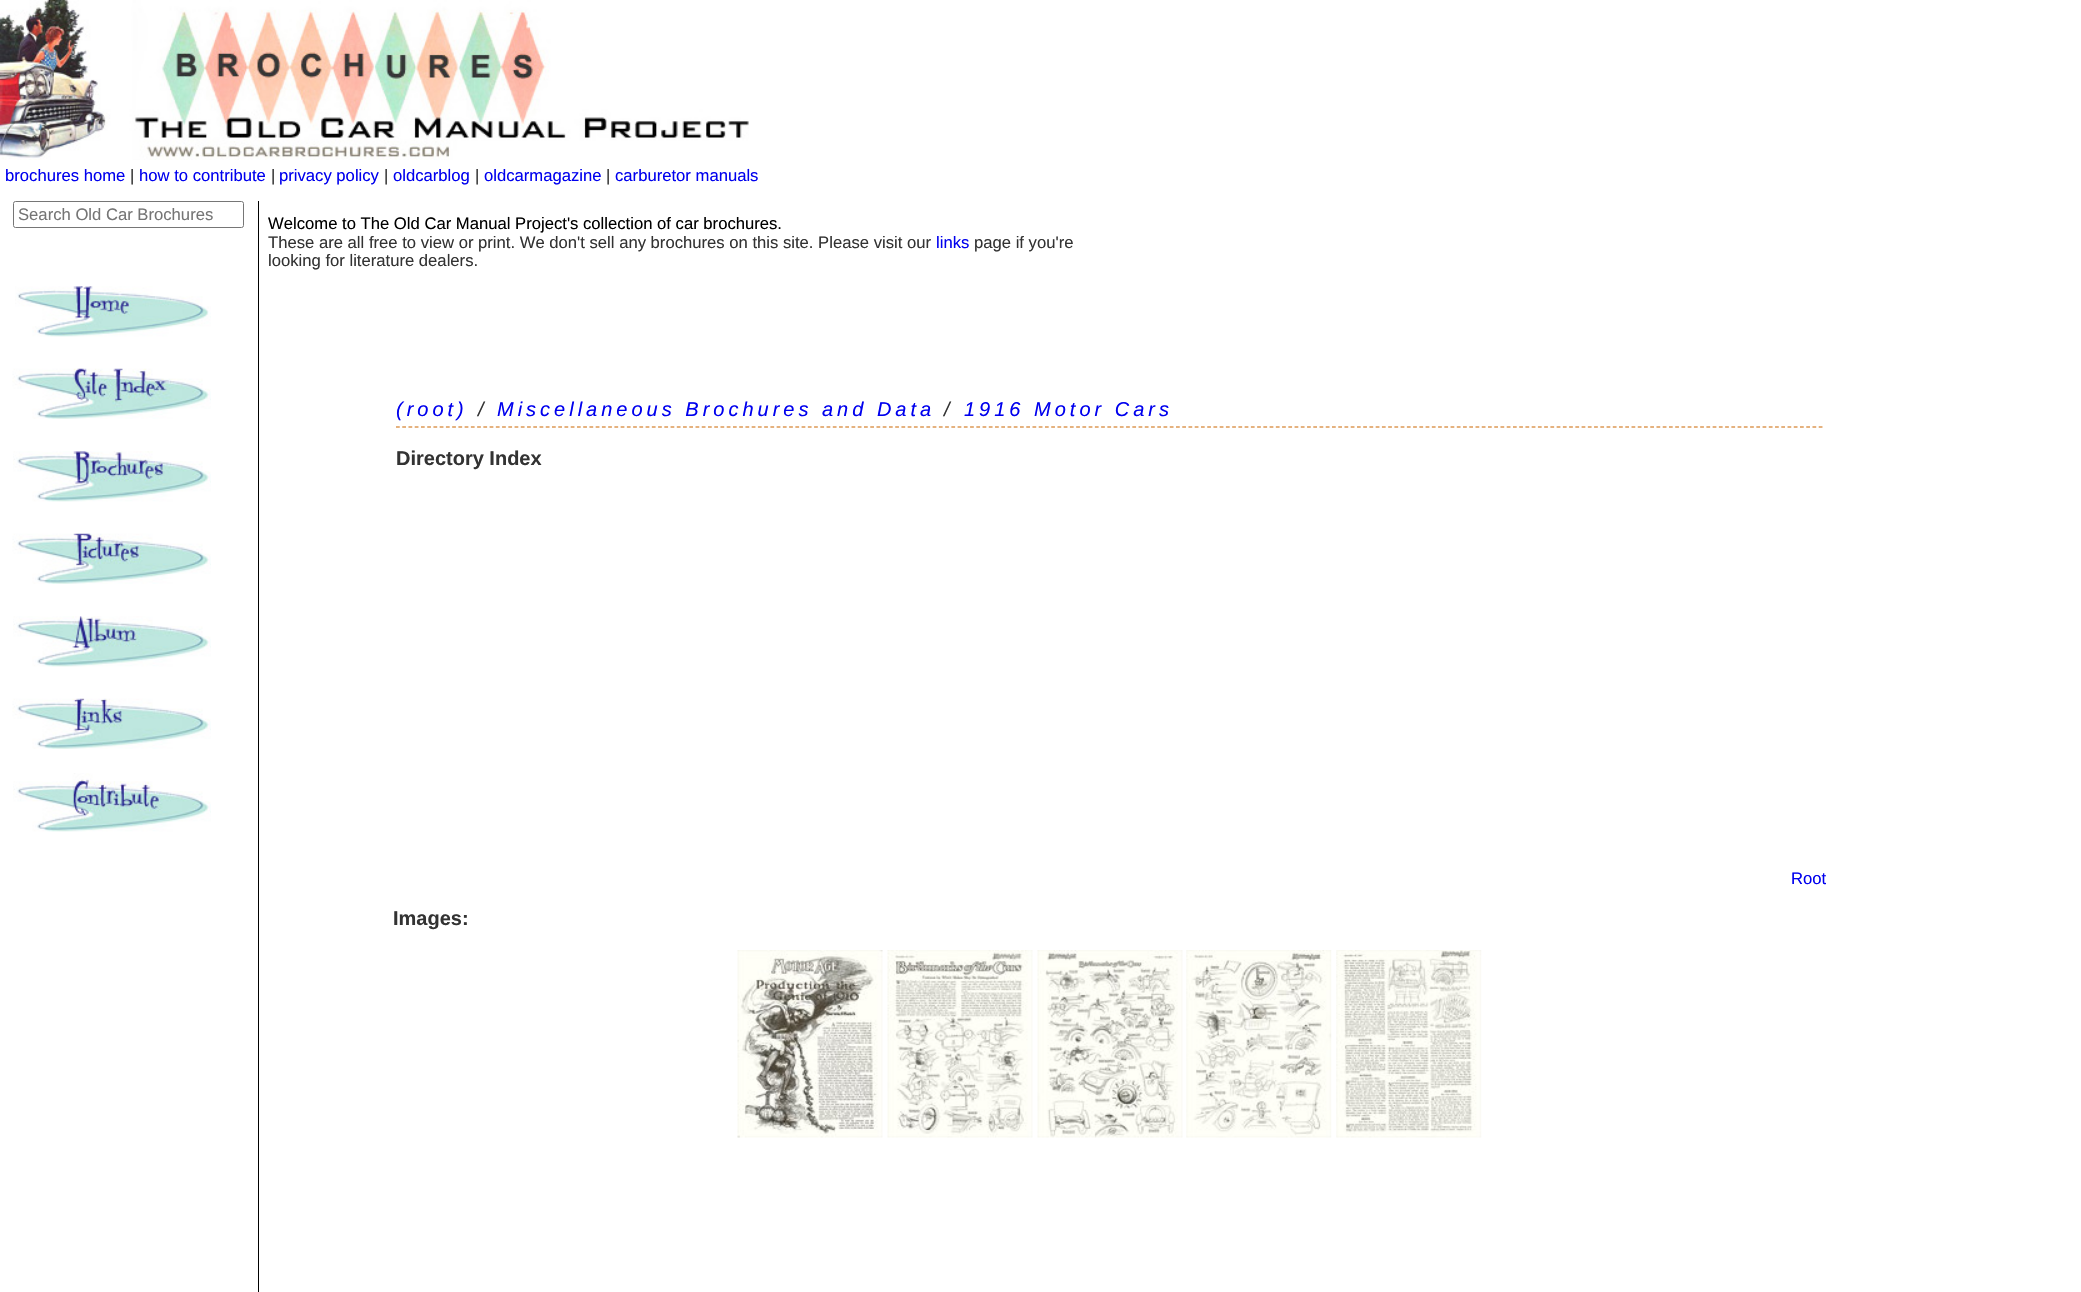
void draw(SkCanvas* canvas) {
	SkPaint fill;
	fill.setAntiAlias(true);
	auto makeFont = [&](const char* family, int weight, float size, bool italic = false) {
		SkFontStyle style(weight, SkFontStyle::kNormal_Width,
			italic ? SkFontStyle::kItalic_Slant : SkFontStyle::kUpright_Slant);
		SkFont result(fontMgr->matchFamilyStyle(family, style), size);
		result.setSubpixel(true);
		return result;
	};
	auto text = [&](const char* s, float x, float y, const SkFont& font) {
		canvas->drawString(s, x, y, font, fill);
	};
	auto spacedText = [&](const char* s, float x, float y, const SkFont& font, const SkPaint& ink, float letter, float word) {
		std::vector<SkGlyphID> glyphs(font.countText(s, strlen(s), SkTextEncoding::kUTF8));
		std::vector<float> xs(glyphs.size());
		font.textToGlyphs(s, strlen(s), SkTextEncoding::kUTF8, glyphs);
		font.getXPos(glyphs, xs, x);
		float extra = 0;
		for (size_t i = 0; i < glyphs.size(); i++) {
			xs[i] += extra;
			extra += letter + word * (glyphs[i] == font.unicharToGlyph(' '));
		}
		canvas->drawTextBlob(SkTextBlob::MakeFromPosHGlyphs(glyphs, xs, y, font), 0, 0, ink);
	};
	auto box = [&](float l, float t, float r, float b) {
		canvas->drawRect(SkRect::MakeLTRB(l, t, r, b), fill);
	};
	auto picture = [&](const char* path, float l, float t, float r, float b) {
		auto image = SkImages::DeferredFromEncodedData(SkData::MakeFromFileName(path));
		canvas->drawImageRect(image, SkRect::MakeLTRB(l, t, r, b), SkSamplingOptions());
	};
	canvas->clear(0xFFFFFFFF);
	picture("image0.png", 0, 0, 749, 160);
	fill.setColor(0xFF000000);
	box(258, 201, 259, 1292);
	fill.setStyle(SkPaint::kStroke_Style);
	fill.setStrokeWidth(1);
	fill.setColor(0xFF767676);
	canvas->drawRoundRect(SkRect::MakeLTRB(13.5f, 201.5f, 243.5f, 227.5f), 2, 2, fill);
	picture("image1.png", 15, 286, 211, 337);
	picture("image2.png", 12, 368, 211, 419);
	picture("image3.png", 13, 451, 211, 502);
	picture("image4.png", 12, 533, 211, 584);
	picture("image5.png", 13, 616, 211, 667);
	picture("image6.png", 12, 698, 211, 749);
	picture("image7.png", 13, 773, 211, 832);
	fill.setStrokeWidth(1.2f);
	fill.setColor(0xFFCC6600);
	fill.setPathEffect(SkDashPathEffect::Make({{3.75f, 2.49f}}, 0));
	canvas->drawPath(SkPathBuilder().moveTo(396, 427).lineTo(1822.5f, 427).detach(), fill);
	fill.setPathEffect(nullptr);
	picture("image8.png", 737, 950, 883, 1138);
	picture("image9.png", 887, 950, 1033, 1138);
	picture("image10.png", 1037, 950, 1183, 1138);
	picture("image11.png", 1186, 950, 1332, 1138);
	picture("image12.png", 1336, 950, 1482, 1138);
	auto font1 = makeFont("Liberation Sans", 400, 16.65f);
	fill.setStyle(SkPaint::kFill_Style);
	fill.setColor(0xFF0000EE);
	text("brochures home", 5, 181, font1);
	fill.setColor(0xFF333333);
	text("|", 130, 181, font1);
	fill.setColor(0xFF0000EE);
	text("how to contribute", 139, 181, font1);
	fill.setColor(0xFF333333);
	text("|", 271, 181, font1);
	fill.setColor(0xFF0000EE);
	text("privacy policy", 279, 181, font1);
	fill.setColor(0xFF333333);
	text("|", 384, 181, font1);
	fill.setColor(0xFF0000EE);
	text("oldcarblog", 393, 181, font1);
	fill.setColor(0xFF333333);
	text("|", 475, 181, font1);
	fill.setColor(0xFF0000EE);
	text("oldcarmagazine", 484, 181, font1);
	fill.setColor(0xFF333333);
	text("|", 606, 181, font1);
	fill.setColor(0xFF0000EE);
	text("carburetor manuals", 615, 181, font1);
	fill.setColor(0xFF757575);
	text("Search Old Car Brochures", 18, 220, font1);
	fill.setColor(0xFF000000);
	text("Welcome to The Old Car Manual Project's collection of car brochures.", 268, 229, font1);
	fill.setColor(0xFF333333);
	text("These are all free to view or print. We don't sell any brochures on this site. Please visit our", 268, 248, font1);
	fill.setColor(0xFF0000EE);
	text("links", 936, 248, font1);
	fill.setColor(0xFF333333);
	text("page if you're", 974, 248, font1);
	text("looking for literature dealers.", 268, 266, font1);
	auto font2 = makeFont("Liberation Sans", 400, 20, true);
	fill.setColor(0xFF0000EE);
	spacedText("(root)", 396, 416, font2, fill, 4, 0);
	fill.setColor(0xFF333333);
	spacedText("/", 478, 416, font2, fill, 4, 0);
	fill.setColor(0xFF0000EE);
	spacedText("Miscellaneous Brochures and Data", 497, 416, font2, fill, 4, 0);
	fill.setColor(0xFF333333);
	spacedText("/", 944, 416, font2, fill, 4, 0);
	fill.setColor(0xFF0000EE);
	spacedText("1916 Motor Cars", 964, 416, font2, fill, 4, 0);
	auto font3 = makeFont("Liberation Sans", 700, 20);
	fill.setColor(0xFF333333);
	text("Directory Index", 396, 465, font3);
	fill.setColor(0xFF0000EE);
	text("Root", 1791, 884, font1);
	fill.setColor(0xFF333333);
	text("Images:", 393, 925, font3);
}
